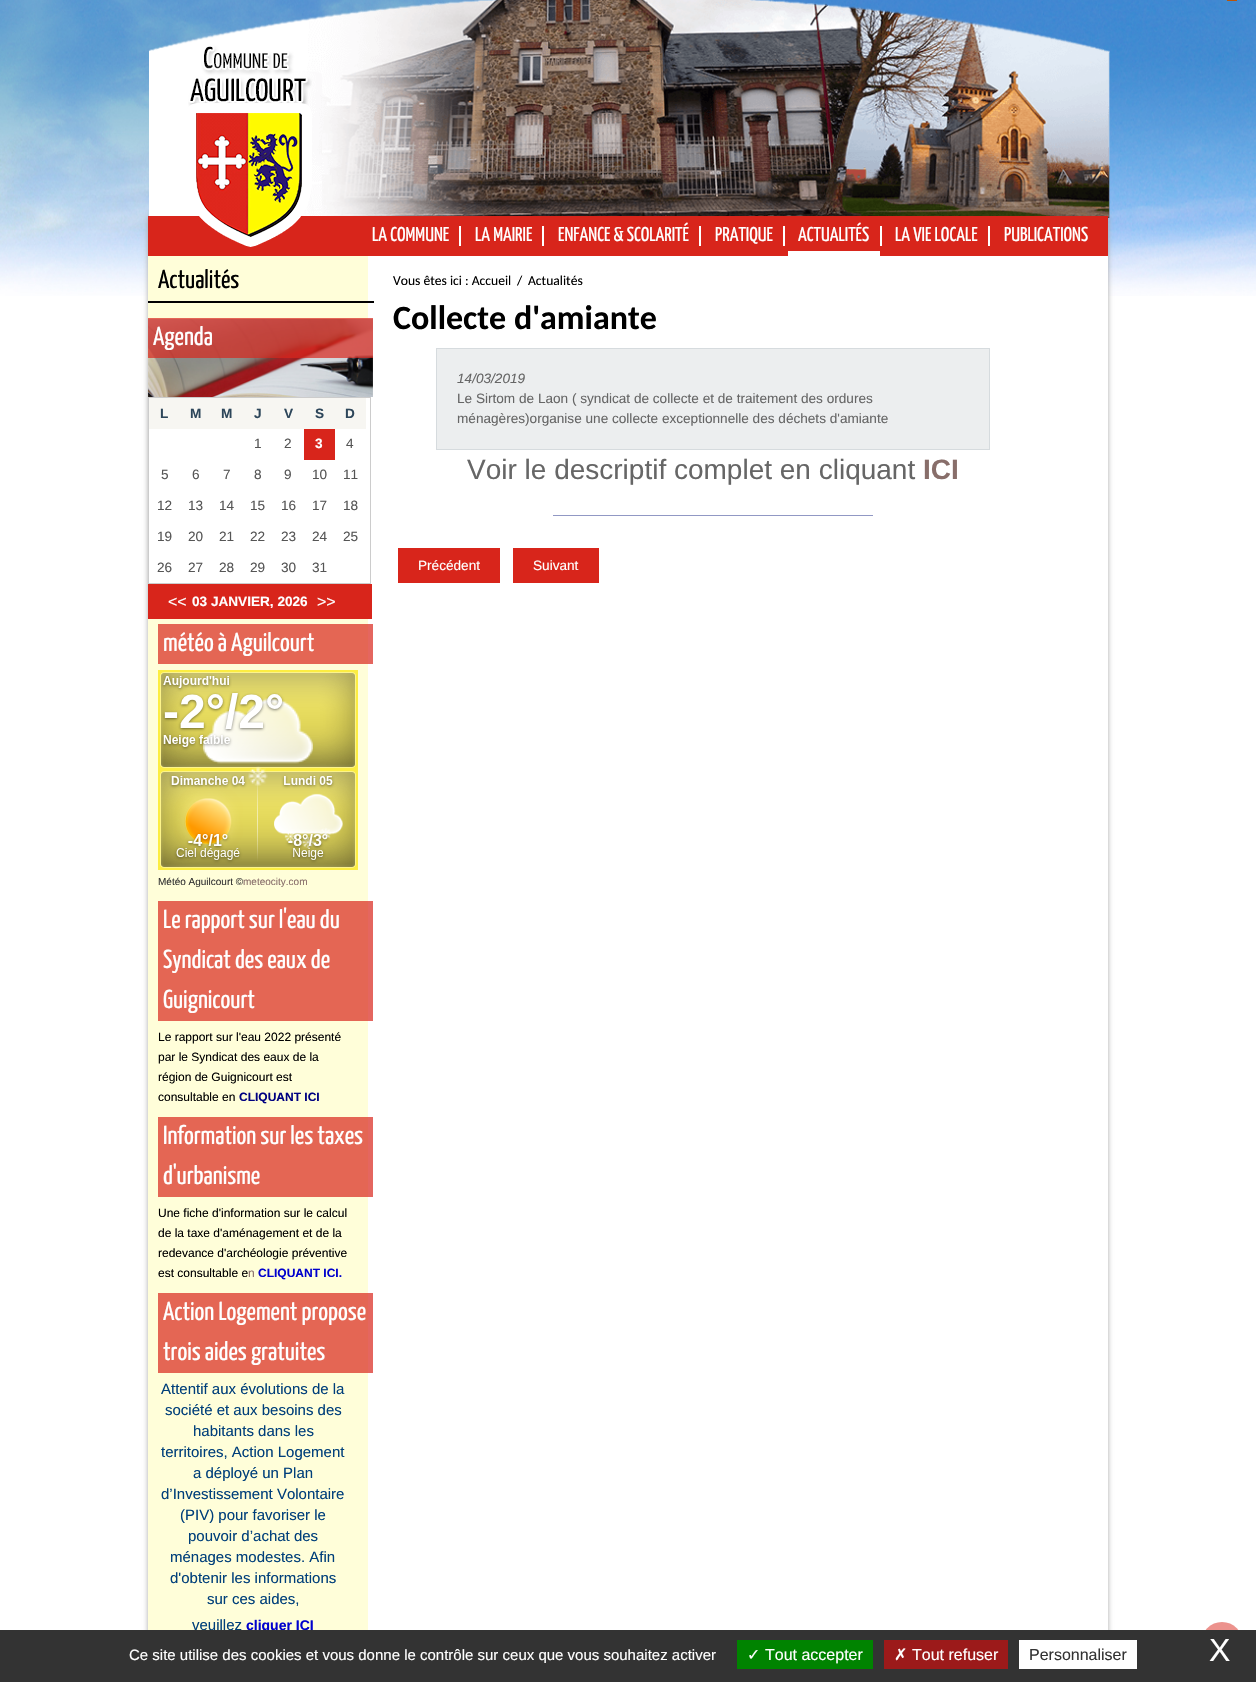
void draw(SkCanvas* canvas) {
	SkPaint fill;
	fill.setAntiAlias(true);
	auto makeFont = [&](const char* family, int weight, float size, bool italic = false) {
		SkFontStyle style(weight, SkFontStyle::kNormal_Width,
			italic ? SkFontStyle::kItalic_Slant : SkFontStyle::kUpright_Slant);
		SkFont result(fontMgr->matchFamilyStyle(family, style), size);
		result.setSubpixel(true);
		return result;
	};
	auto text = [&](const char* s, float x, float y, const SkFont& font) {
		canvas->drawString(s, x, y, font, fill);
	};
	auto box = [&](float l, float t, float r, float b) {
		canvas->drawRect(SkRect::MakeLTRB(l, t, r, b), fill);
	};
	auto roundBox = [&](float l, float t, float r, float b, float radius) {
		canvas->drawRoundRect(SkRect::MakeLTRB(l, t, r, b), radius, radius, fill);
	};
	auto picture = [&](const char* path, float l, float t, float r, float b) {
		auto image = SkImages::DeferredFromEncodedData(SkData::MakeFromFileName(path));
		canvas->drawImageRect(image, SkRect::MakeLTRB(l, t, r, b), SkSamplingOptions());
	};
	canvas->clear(0xFFFFFFFF);
	picture("image0.png", 0, 0, 1256, 296);
	fill.setColor(0xFFBA5409);
	box(1227, 0, 1237, 1);
	fill.setColor(0xFFAAAAAA);
	fill.setMaskFilter(SkMaskFilter::MakeBlur(kNormal_SkBlurStyle, 2.5f));
	canvas->drawRect(SkRect::MakeLTRB(148, 216, 1108, 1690), fill);
	fill.setMaskFilter(nullptr);
	picture("image1.png", 149, 0, 1110, 218);
	fill.setColor(0xFFD8251B);
	box(148, 216, 1108, 256);
	picture("image2.png", 188, 33, 312, 247);
	fill.setColor(0xFFFFFFFF);
	box(459, 226, 461, 246);
	box(542, 226, 544, 246);
	box(699, 226, 701, 246);
	box(783, 226, 785, 246);
	box(880, 226, 882, 246);
	box(788, 251, 880, 256);
	box(988, 226, 990, 246);
	box(368, 256, 1108, 1630);
	fill.setColor(0xFFE4665F);
	box(368, 1293, 373, 1373);
	box(368, 1117, 373, 1197);
	box(368, 901, 373, 1021);
	box(368, 624, 373, 664);
	fill.setColor(0xFFFFFED9);
	box(148, 256, 368, 1630);
	fill.setColor(0xFFE46654);
	box(158, 1293, 368, 1373);
	box(158, 1117, 368, 1197);
	box(158, 901, 368, 1021);
	box(158, 624, 368, 664);
	fill.setColor(0xFF000000);
	box(148, 301, 374, 303);
	picture("image3.png", 148, 319, 373, 397);
	fill.setColor(0xB3D8251B);
	box(148, 318, 373, 358);
	fill.setColor(0xFFFFFFFF);
	box(149, 398, 368, 583);
	fill.setStyle(SkPaint::kStroke_Style);
	fill.setStrokeWidth(1);
	fill.setColor(0xFFCCCCCC);
	canvas->drawRect(SkRect::MakeLTRB(148.5f, 397.5f, 370.5f, 583.5f), fill);
	fill.setStyle(SkPaint::kFill_Style);
	fill.setColor(0xFFF7F6F2);
	box(149, 398, 366, 429);
	fill.setColor(0xFFD8251B);
	box(304, 429, 335, 460);
	box(148, 584, 372, 619);
	picture("image4.png", 158, 670, 358, 870);
	fill.setColor(0xFFECEEEF);
	canvas->drawRect(SkRect::MakeLTRB(436.5f, 348.5f, 989.5f, 449.5f), fill);
	fill.setStyle(SkPaint::kStroke_Style);
	fill.setColor(0xFFD6DBDE);
	canvas->drawRect(SkRect::MakeLTRB(436.5f, 348.5f, 989.5f, 449.5f), fill);
	fill.setStyle(SkPaint::kFill_Style);
	fill.setColor(0xFF9198C4);
	box(553, 515, 873, 516);
	fill.setColor(0xFFD8251B);
	box(398, 548, 500, 583);
	box(513, 548, 599, 583);
	fill.setColor(0xFFEC928D);
	roundBox(1201, 1622, 1243, 1665, 21);
	auto font1 = makeFont("Yanone Kaffeesatz", 200, 20);
	fill.setColor(0xFFFFFFFF);
	text("LA COMMUNE", 372, 241, font1);
	text("LA MAIRIE", 475, 241, font1);
	text("ENFANCE & SCOLARITÉ", 558, 241, font1);
	text("PRATIQUE", 715, 241, font1);
	text("ACTUALITÉS", 798, 241, font1);
	text("LA VIE LOCALE", 895, 241, font1);
	text("PUBLICATIONS", 1004, 241, font1);
	auto font2 = makeFont("Yanone Kaffeesatz", 200, 26);
	fill.setColor(0xFF000000);
	text("Actualités", 158, 288, font2);
	fill.setColor(0xFFFFFFFF);
	text("Agenda", 153, 345, font2);
	auto font3 = makeFont("Liberation Sans", 700, 13.6f);
	fill.setColor(0xFF2D465A);
	text("L", 160, 418, font3);
	text("M", 190, 418, font3);
	text("M", 221, 418, font3);
	text("J", 254, 418, font3);
	text("V", 284, 418, font3);
	text("S", 315, 418, font3);
	text("D", 345, 418, font3);
	auto font4 = makeFont("Liberation Sans", 400, 13.6f);
	fill.setColor(0xFF555555);
	text("1", 254, 448, font4);
	text("2", 284, 448, font4);
	fill.setColor(0xFFFFFFFF);
	text("3", 315, 448, font3);
	fill.setColor(0xFF555555);
	text("4", 346, 448, font4);
	text("5", 161, 479, font4);
	text("6", 192, 479, font4);
	text("7", 223, 479, font4);
	text("8", 254, 479, font4);
	text("9", 284, 479, font4);
	text("10", 312, 479, font4);
	text("11", 343, 479, font4);
	text("12", 157, 510, font4);
	text("13", 188, 510, font4);
	text("14", 219, 510, font4);
	text("15", 250, 510, font4);
	text("16", 281, 510, font4);
	text("17", 312, 510, font4);
	text("18", 343, 510, font4);
	text("19", 157, 541, font4);
	text("20", 188, 541, font4);
	text("21", 219, 541, font4);
	text("22", 250, 541, font4);
	text("23", 281, 541, font4);
	text("24", 312, 541, font4);
	text("25", 343, 541, font4);
	text("26", 157, 572, font4);
	text("27", 188, 572, font4);
	text("28", 219, 572, font4);
	text("29", 250, 572, font4);
	text("30", 281, 572, font4);
	text("31", 312, 572, font4);
	auto font5 = makeFont("Liberation Sans", 400, 16);
	fill.setColor(0xFFFFFFFF);
	text("<<", 168, 607, font5);
	text("03 JANVIER, 2026", 192, 606, font3);
	text(">>", 317, 607, font5);
	text("météo à Aguilcourt", 163, 651, font2);
	auto font6 = makeFont("Liberation Sans", 400, 10);
	fill.setColor(0xFF333333);
	text("Météo Aguilcourt ©", 158, 885, font6);
	fill.setColor(0xFF886E6A);
	text("meteocity.com", 243, 885, font6);
	fill.setColor(0xFFFFFFFF);
	text("Le rapport sur l'eau du", 163, 928, font2);
	text("Syndicat des eaux de", 163, 968, font2);
	text("Guignicourt", 163, 1008, font2);
	auto font7 = makeFont("Liberation Sans", 400, 12);
	fill.setColor(0xFF000000);
	text("Le rapport sur l'eau 2022 présenté", 158, 1041, font7);
	text("par le Syndicat des eaux de la", 158, 1061, font7);
	text("région de Guignicourt est", 158, 1081, font7);
	text("consultable en", 158, 1101, font7);
	auto font8 = makeFont("Liberation Sans", 700, 12);
	fill.setColor(0xFF000080);
	text("CLIQUANT ICI", 239, 1101, font8);
	fill.setColor(0xFFFFFFFF);
	text("Information sur les taxes", 163, 1144, font2);
	text("d'urbanisme", 163, 1184, font2);
	fill.setColor(0xFF000000);
	text("Une fiche d'information sur le calcul", 158, 1217, font7);
	text("de la taxe d'aménagement et de la", 158, 1237, font7);
	text("redevance d'archéologie préventive", 158, 1257, font7);
	text("est consultable e", 158, 1277, font7);
	fill.setColor(0xFF886E6A);
	text("n", 248, 1277, font7);
	fill.setColor(0xFF0000CD);
	text("CLIQUANT ICI.", 258, 1277, font8);
	fill.setColor(0xFFFFFFFF);
	text("Action Logement propose", 163, 1320, font2);
	text("trois aides gratuites", 163, 1360, font2);
	auto font9 = makeFont("Liberation Sans", 400, 15);
	fill.setColor(0xFF003F7A);
	text("Attentif aux évolutions de la", 161, 1394, font9);
	text("société et aux besoins des", 165, 1415, font9);
	text("habitants dans les", 193, 1436, font9);
	text("territoires, Action Logement", 161, 1457, font9);
	text("a déployé un Plan", 193, 1478, font9);
	text("d’Investissement Volontaire", 161, 1499, font9);
	text("(PIV) pour favoriser le", 180, 1520, font9);
	text("pouvoir d’achat des", 188, 1541, font9);
	text("ménages modestes. Afin", 170, 1562, font9);
	text("d'obtenir les informations", 170, 1583, font9);
	text("sur ces aides,", 207, 1604, font9);
	text("veuillez", 192, 1630, font9);
	auto font10 = makeFont("Liberation Sans", 700, 14);
	fill.setColor(0xFF0000CD);
	text("cliquer ICI", 246, 1630, font10);
	auto font11 = makeFont("Carlito", 400, 13.6f);
	fill.setColor(0xFF000000);
	text("Vous êtes ici : Accueil", 393, 285, font11);
	text("/", 517, 285, font11);
	text("Actualités", 528, 285, font11);
	auto font12 = makeFont("Carlito", 700, 34);
	text("Collecte d'amiante", 393, 329, font12);
	auto font13 = makeFont("Liberation Sans", 400, 13.6f, true);
	fill.setColor(0xFF666666);
	text("14/03/2019", 457, 383, font13);
	text("Le Sirtom de Laon ( syndicat de collecte et de traitement des ordures", 457, 403, font4);
	text("ménagères)organise une collecte exceptionnelle des déchets d'amiante", 457, 423, font4);
	auto font14 = makeFont("Liberation Sans", 400, 28);
	text("Voir le descriptif complet en cliquant", 467, 479, font14);
	auto font15 = makeFont("Liberation Sans", 700, 28);
	fill.setColor(0xFF886E6A);
	text("ICI", 923, 479, font15);
	fill.setColor(0xFFFFFFFF);
	text("Précédent", 418, 570, font4);
	text("Suivant", 533, 570, font4);
	fill.setColor(0xFF333333);
	box(0, 1630, 1256, 1682);
	fill.setColor(0xFFFFFFFF);
	text("Ce site utilise des cookies et vous donne le contrôle sur ceux que vous souhaitez activer", 129, 1660, font9);
	fill.setColor(0xFF008300);
	box(737, 1640, 873, 1669);
	auto font16 = makeFont("DejaVu Sans", 400, 16);
	fill.setColor(0xFFFFFFFF);
	text("✓", 747, 1660, font16);
	text("Tout accepter", 765, 1660, font5);
	fill.setColor(0xFF9C1A1A);
	box(884, 1640, 1008, 1669);
	fill.setColor(0xFFFFFFFF);
	text("✗", 894, 1660, font16);
	text("Tout refuser", 912, 1660, font5);
	box(1019, 1640, 1137, 1669);
	fill.setColor(0xFF333333);
	text("Personnaliser", 1029, 1660, font5);
	auto font17 = makeFont("Liberation Sans", 400, 32);
	fill.setColor(0xFFFFFFFF);
	text("X", 1209, 1661, font17);
}
